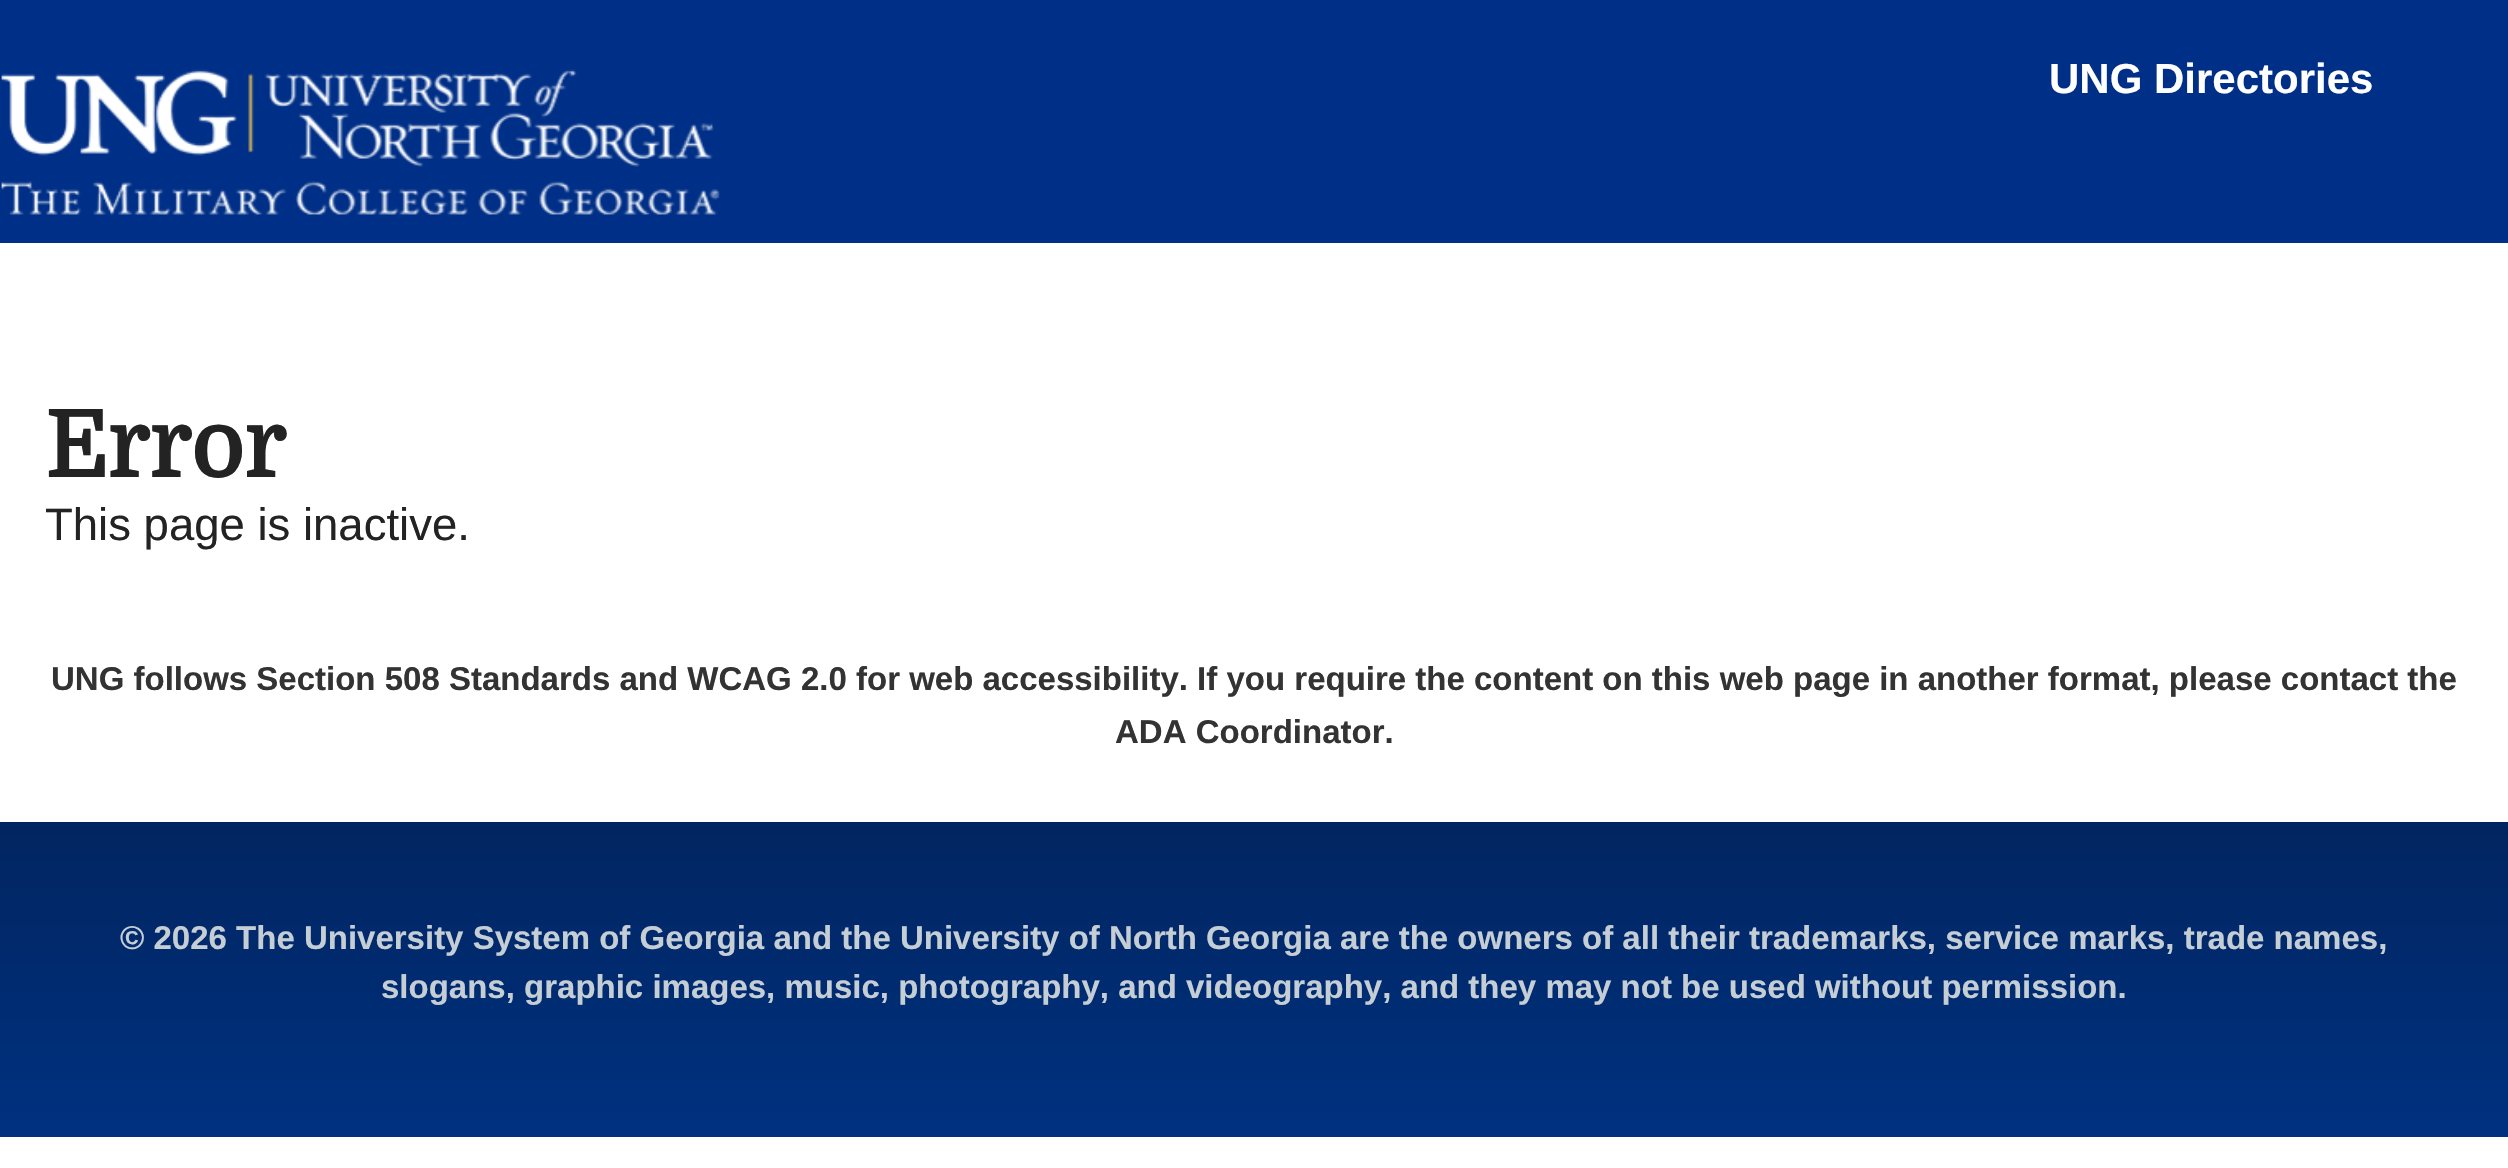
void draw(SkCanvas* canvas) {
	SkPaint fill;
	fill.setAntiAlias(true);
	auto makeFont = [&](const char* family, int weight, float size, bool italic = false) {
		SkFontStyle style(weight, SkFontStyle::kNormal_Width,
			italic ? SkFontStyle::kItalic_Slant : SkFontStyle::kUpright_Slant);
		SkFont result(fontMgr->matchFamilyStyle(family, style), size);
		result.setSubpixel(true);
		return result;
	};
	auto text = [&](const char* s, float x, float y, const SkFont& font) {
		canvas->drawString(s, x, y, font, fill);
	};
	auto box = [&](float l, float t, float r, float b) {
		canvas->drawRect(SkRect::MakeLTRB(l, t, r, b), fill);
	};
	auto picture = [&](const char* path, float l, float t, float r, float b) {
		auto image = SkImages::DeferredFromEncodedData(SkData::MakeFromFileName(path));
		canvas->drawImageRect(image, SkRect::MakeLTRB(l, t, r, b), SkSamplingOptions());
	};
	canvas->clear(0xFFFFFFFF);
	fill.setColor(0xFF002F87);
	box(0, 0, 2508, 243);
	picture("image0.png", 1, 69, 720, 215);
	{
		const SkColor colors[] = {0xFF012560, 0xFF003180};
		const float stops[] = {0, 1};
		const SkPoint ends[] = {{1254, 822}, {1254, 1137}};
		fill.setShader(SkGradientShader::MakeLinear(ends, colors, stops, 2, SkTileMode::kClamp));
		fill.setAlpha(255);
	}
	box(0, 822, 2508, 1137);
	auto font1 = makeFont("Liberation Sans", 700, 42);
	fill.setShader(nullptr);
	fill.setColor(0xFFFFFFFF);
	text("UNG Directories", 2049, 93, font1);
	auto font2 = makeFont("Domine", 700, 91);
	fill.setColor(0xFF232323);
	text("Error", 45, 477, font2);
	auto font3 = makeFont("Liberation Sans", 400, 45.5f);
	text("This page is inactive.", 45, 540, font3);
	auto font4 = makeFont("Liberation Sans", 700, 33);
	fill.setColor(0xFF333333);
	text("UNG follows Section 508 Standards and WCAG 2.0 for web accessibility. If you require the content on this web page in another format, please contact the", 51, 690, font4);
	text("ADA Coordinator.", 1115, 743, font4);
	fill.setColor(0xFFC5CED4);
	text("© 2026 The University System of Georgia and the University of North Georgia are the owners of all their trademarks, service marks, trade names,", 120, 949, font4);
	text("slogans, graphic images, music, photography, and videography, and they may not be used without permission.", 381, 998, font4);
}
